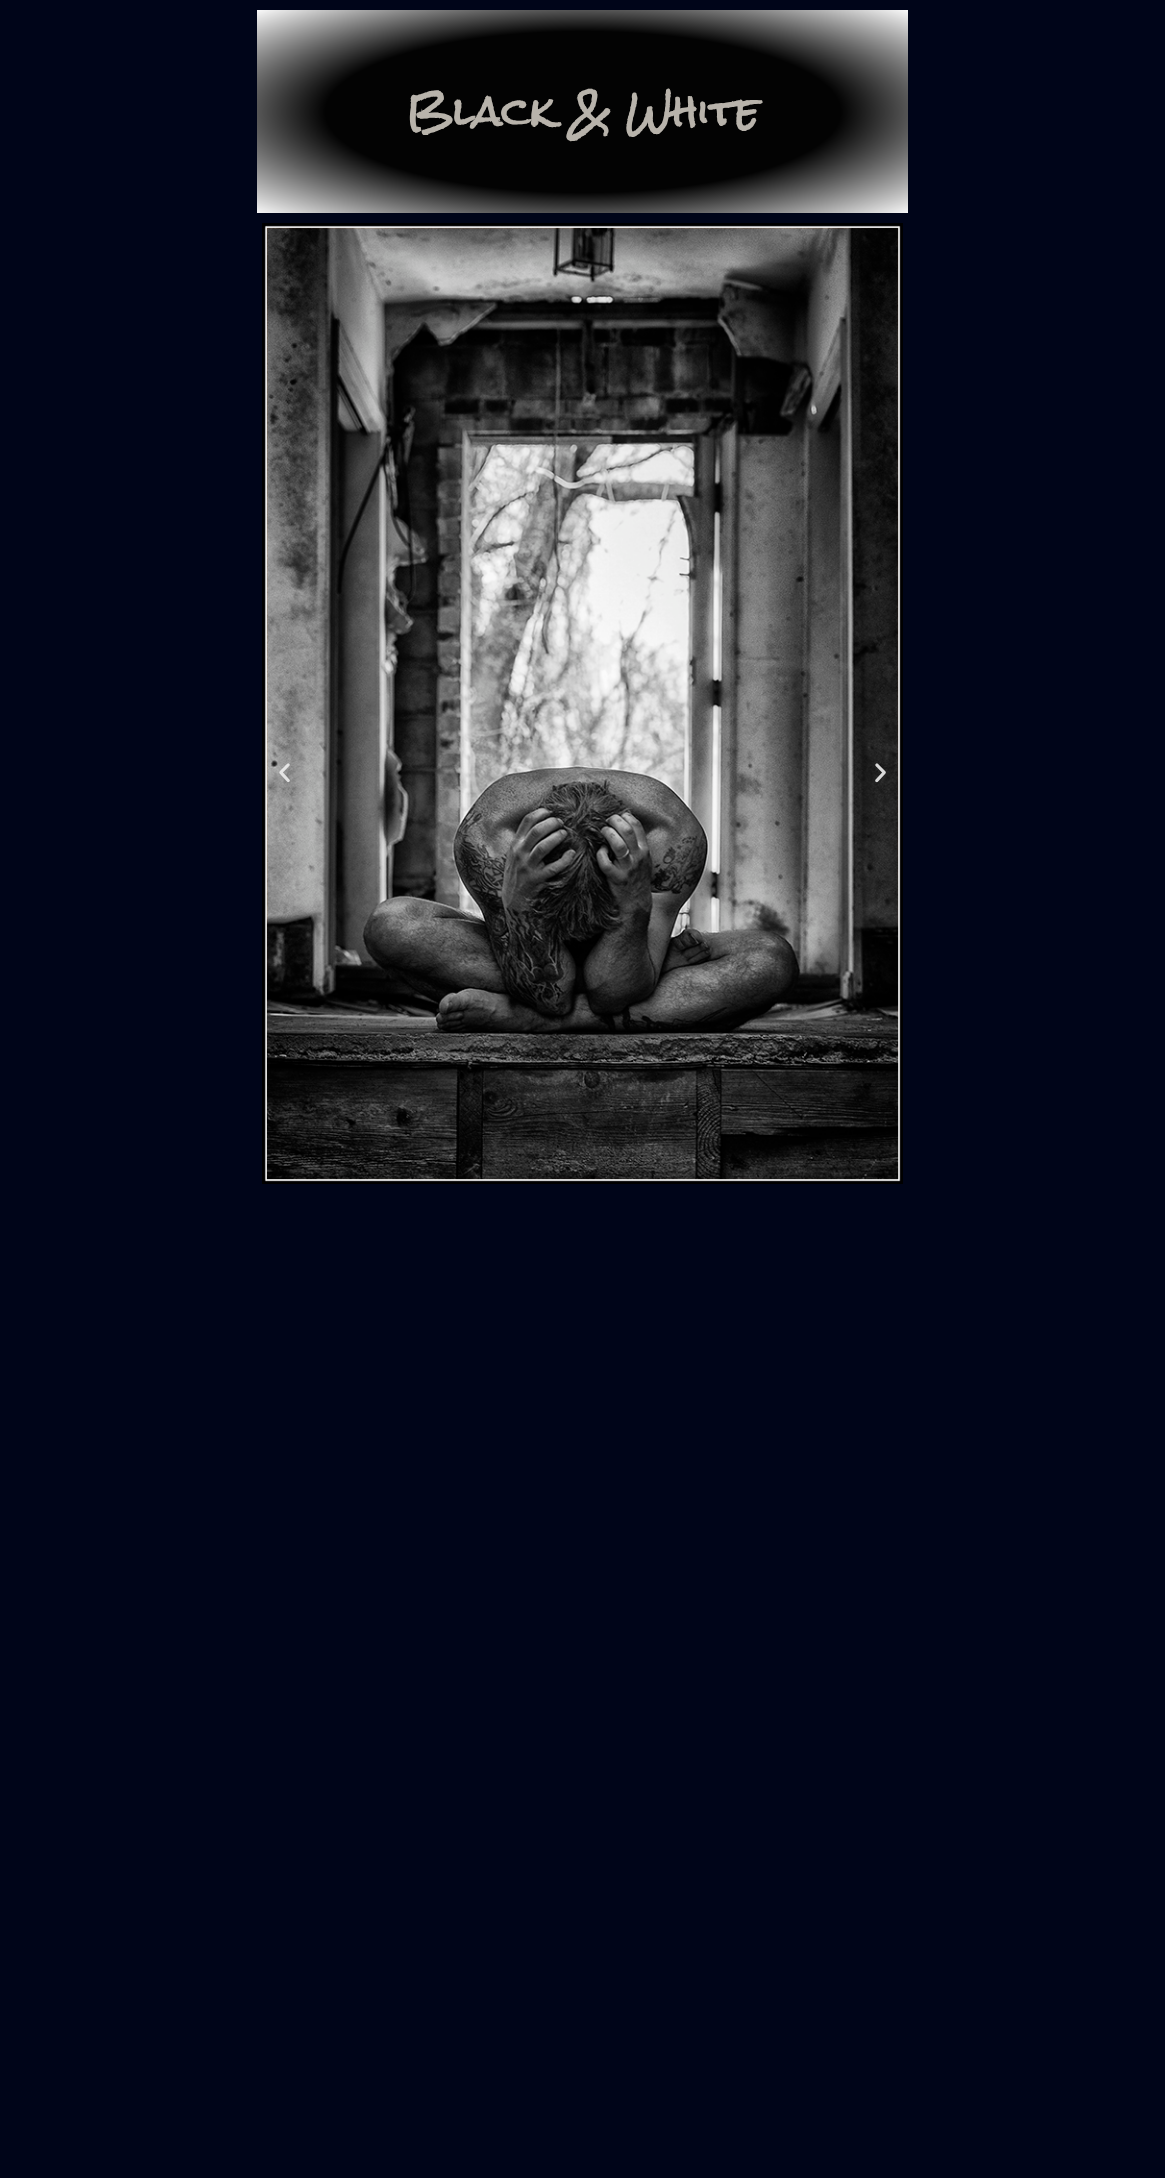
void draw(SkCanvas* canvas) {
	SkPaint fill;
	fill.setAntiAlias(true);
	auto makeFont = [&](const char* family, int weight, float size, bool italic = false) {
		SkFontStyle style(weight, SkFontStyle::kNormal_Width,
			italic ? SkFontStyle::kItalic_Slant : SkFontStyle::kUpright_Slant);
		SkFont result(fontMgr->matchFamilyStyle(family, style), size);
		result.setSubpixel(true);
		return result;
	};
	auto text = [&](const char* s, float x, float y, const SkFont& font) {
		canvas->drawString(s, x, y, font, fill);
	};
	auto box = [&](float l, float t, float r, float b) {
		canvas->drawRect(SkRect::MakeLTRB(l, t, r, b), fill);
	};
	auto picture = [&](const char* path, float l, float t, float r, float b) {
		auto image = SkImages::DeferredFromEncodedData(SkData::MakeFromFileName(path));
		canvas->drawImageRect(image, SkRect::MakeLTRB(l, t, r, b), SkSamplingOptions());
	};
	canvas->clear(0xFF000519);
	{
		const SkColor colors[] = {0xFF030303, 0xFFF9F9F9};
		const float stops[] = {0.56f, 1};
		SkMatrix m = SkMatrix::Translate(583, 112).preScale(460, 144);
		fill.setShader(SkGradientShader::MakeRadial({0, 0}, 1, colors, stops, 2, SkTileMode::kClamp, 0, &m));
		fill.setAlpha(255);
	}
	box(257, 10, 908, 213);
	picture("image0.png", 262, 223, 903, 1184);
	picture("image1.png", 279, 763, 290, 783);
	picture("image2.png", 875, 763, 886, 783);
	auto font1 = makeFont("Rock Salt", 700, 39);
	fill.setShader(nullptr);
	fill.setColor(0xFFB8B3AB);
	text("Black & White", 406, 127, font1);
}
